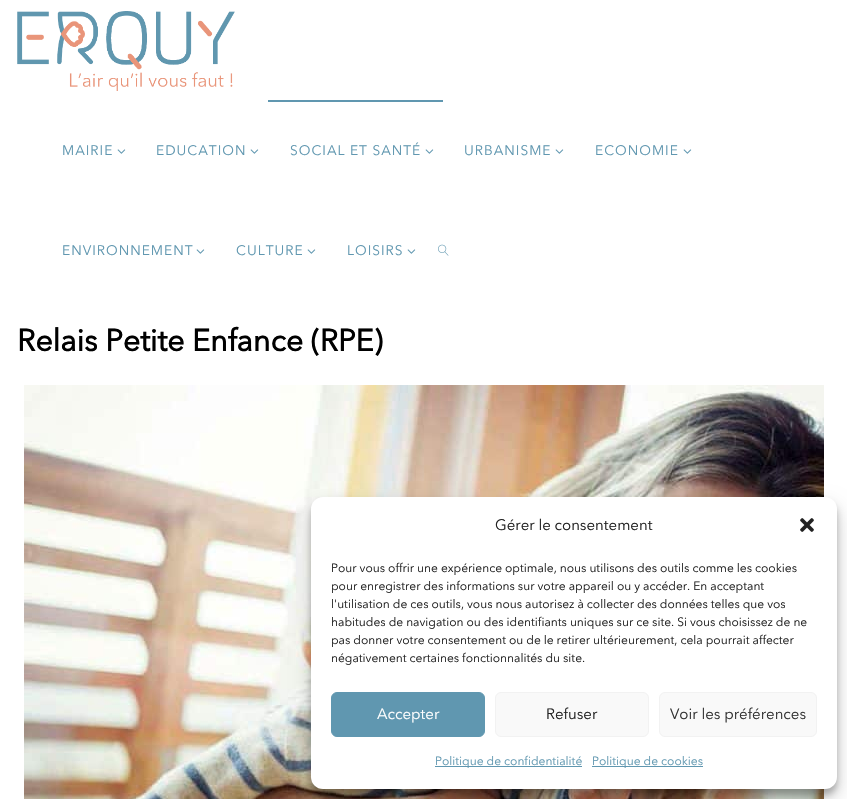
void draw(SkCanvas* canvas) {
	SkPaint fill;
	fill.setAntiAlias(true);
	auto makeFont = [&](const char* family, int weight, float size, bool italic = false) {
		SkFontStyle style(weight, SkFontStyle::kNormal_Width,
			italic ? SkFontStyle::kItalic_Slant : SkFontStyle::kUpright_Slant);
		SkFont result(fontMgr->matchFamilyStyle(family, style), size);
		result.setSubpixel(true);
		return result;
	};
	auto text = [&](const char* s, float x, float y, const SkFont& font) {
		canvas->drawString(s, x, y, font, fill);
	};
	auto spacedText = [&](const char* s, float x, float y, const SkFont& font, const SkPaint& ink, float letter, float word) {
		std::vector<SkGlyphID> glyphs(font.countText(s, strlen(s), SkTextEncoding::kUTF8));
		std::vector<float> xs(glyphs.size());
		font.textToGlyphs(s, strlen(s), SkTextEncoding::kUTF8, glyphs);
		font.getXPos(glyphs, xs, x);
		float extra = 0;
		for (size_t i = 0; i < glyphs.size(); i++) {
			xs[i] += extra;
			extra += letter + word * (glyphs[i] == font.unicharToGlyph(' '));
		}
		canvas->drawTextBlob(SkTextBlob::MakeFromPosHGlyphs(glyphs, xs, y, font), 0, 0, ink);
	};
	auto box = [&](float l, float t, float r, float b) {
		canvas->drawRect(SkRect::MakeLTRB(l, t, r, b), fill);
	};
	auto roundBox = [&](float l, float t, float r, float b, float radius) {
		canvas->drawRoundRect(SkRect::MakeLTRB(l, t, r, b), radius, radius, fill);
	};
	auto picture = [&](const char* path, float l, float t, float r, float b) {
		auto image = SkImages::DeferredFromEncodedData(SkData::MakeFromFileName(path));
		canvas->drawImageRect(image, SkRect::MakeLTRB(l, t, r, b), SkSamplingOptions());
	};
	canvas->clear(0xFFFFFFFF);
	picture("image0.png", 17, 11, 235, 91);
	picture("image1.png", 117, 149, 126, 154);
	picture("image1.png", 250, 149, 259, 154);
	fill.setColor(0xFF6097B0);
	box(268, 100, 443, 102);
	picture("image1.png", 425, 149, 434, 154);
	picture("image1.png", 555, 149, 564, 154);
	picture("image1.png", 683, 149, 692, 154);
	picture("image1.png", 196, 249, 205, 254);
	picture("image1.png", 307, 249, 316, 254);
	picture("image1.png", 407, 249, 416, 254);
	picture("image2.png", 438, 244, 449, 256);
	picture("image3.png", 24, 385, 824, 799);
	fill.setColor(0x3B000000);
	fill.setMaskFilter(SkMaskFilter::MakeBlur(kNormal_SkBlurStyle, 3));
	canvas->drawRoundRect(SkRect::MakeLTRB(311, 503, 837, 795), 12, 12, fill);
	fill.setMaskFilter(nullptr);
	fill.setColor(0x30000000);
	fill.setMaskFilter(SkMaskFilter::MakeBlur(kNormal_SkBlurStyle, 10));
	canvas->drawRoundRect(SkRect::MakeLTRB(311, 507, 837, 799), 12, 12, fill);
	fill.setMaskFilter(nullptr);
	fill.setColor(0xFFFFFFFF);
	roundBox(311, 497, 837, 789, 12);
	picture("image4.png", 800, 518, 814, 532);
	fill.setColor(0xFF6097B0);
	canvas->drawRoundRect(SkRect::MakeLTRB(331.5f, 692.5f, 484.5f, 736.5f), 5.5f, 5.5f, fill);
	fill.setStyle(SkPaint::kStroke_Style);
	fill.setStrokeWidth(1);
	canvas->drawRoundRect(SkRect::MakeLTRB(331.5f, 692.5f, 484.5f, 736.5f), 5.5f, 5.5f, fill);
	fill.setStyle(SkPaint::kFill_Style);
	fill.setColor(0xFFF9F9F9);
	canvas->drawRoundRect(SkRect::MakeLTRB(495.5f, 692.5f, 648.5f, 736.5f), 5.5f, 5.5f, fill);
	fill.setStyle(SkPaint::kStroke_Style);
	fill.setColor(0xFFF2F2F2);
	canvas->drawRoundRect(SkRect::MakeLTRB(495.5f, 692.5f, 648.5f, 736.5f), 5.5f, 5.5f, fill);
	fill.setStyle(SkPaint::kFill_Style);
	fill.setColor(0xFFF9F9F9);
	canvas->drawRoundRect(SkRect::MakeLTRB(659.5f, 692.5f, 816.5f, 736.5f), 5.5f, 5.5f, fill);
	fill.setStyle(SkPaint::kStroke_Style);
	fill.setColor(0xFFF2F2F2);
	canvas->drawRoundRect(SkRect::MakeLTRB(659.5f, 692.5f, 816.5f, 736.5f), 5.5f, 5.5f, fill);
	fill.setStyle(SkPaint::kFill_Style);
	fill.setColor(0xFF6097B0);
	box(435, 766, 582, 767);
	box(592, 766, 703, 767);
	auto font1 = makeFont("Avenir Next", 400, 13.75f);
	spacedText("MAIRIE", 62, 155, font1, fill, 1, 0);
	spacedText("EDUCATION", 156, 155, font1, fill, 1, 0);
	spacedText("SOCIAL ET SANTÉ", 290, 155, font1, fill, 1, 0);
	spacedText("URBANISME", 464, 155, font1, fill, 1, 0);
	spacedText("ECONOMIE", 595, 155, font1, fill, 1, 0);
	spacedText("ENVIRONNEMENT", 62, 255, font1, fill, 1, 0);
	spacedText("CULTURE", 236, 255, font1, fill, 1, 0);
	spacedText("LOISIRS", 347, 255, font1, fill, 1, 0);
	auto font2 = makeFont("Avenir Next", 700, 30.4f);
	fill.setColor(0xFF000000);
	text("Relais Petite Enfance (RPE)", 17, 351, font2);
	auto font3 = makeFont("Avenir Next", 400, 15);
	fill.setColor(0xFF222222);
	text("Gérer le consentement", 495, 530, font3);
	auto font4 = makeFont("Avenir Next", 400, 12);
	text("Pour vous offrir une expérience optimale, nous utilisons des outils comme les cookies", 331, 572, font4);
	text("pour enregistrer des informations sur votre appareil ou y accéder. En acceptant", 331, 590, font4);
	text("l'utilisation de ces outils, vous nous autorisez à collecter des données telles que vos", 331, 608, font4);
	text("habitudes de navigation ou des identifiants uniques sur ce site. Si vous choisissez de ne", 331, 626, font4);
	text("pas donner votre consentement ou de le retirer ultérieurement, cela pourrait affecter", 331, 644, font4);
	text("négativement certaines fonctionnalités du site.", 331, 662, font4);
	fill.setColor(0xFFFFFFFF);
	text("Accepter", 377, 719, font3);
	fill.setColor(0xFF222222);
	text("Refuser", 546, 719, font3);
	fill.setColor(0xFF333333);
	text("Voir les préférences", 670, 719, font3);
	fill.setColor(0xFF6097B0);
	text("Politique de confidentialité", 435, 765, font4);
	text("Politique de cookies", 592, 765, font4);
}
